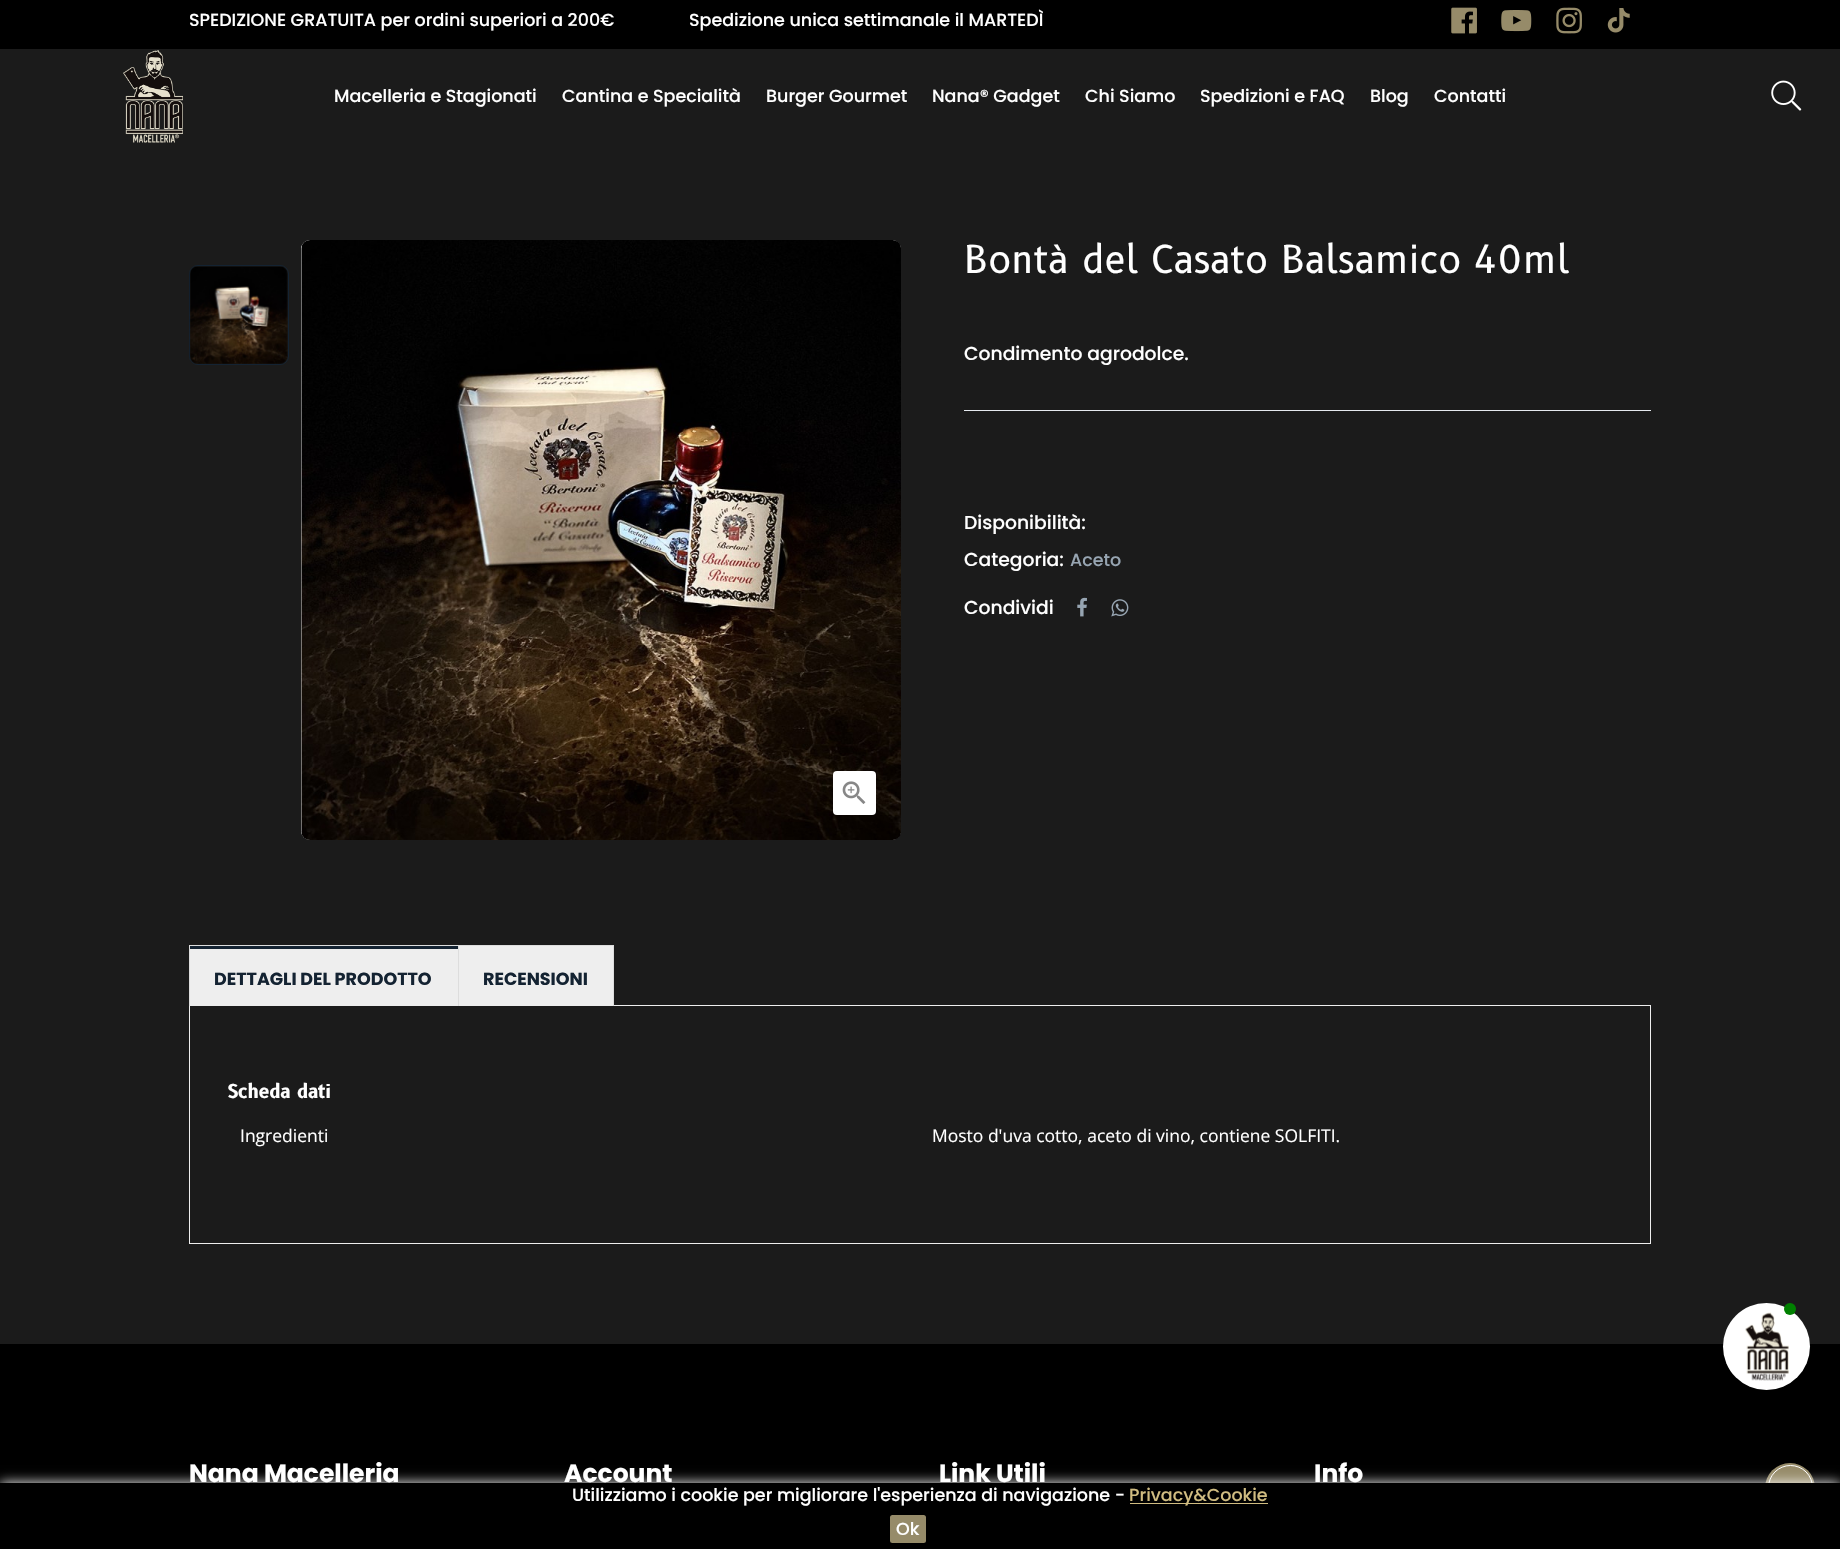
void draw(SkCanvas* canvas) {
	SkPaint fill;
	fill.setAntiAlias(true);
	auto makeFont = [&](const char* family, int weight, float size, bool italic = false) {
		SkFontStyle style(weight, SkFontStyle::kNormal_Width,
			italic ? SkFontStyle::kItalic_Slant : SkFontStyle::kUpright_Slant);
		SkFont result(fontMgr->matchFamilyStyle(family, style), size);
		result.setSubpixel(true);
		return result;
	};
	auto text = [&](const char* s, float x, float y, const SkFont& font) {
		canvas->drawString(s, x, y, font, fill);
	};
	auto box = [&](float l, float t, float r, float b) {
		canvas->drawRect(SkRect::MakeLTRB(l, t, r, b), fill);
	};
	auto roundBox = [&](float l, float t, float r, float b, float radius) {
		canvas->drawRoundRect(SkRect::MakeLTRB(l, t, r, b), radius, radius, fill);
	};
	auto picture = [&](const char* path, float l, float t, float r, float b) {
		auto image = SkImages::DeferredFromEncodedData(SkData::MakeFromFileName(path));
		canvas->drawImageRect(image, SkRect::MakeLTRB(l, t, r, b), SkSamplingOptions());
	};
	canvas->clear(0xFF1B1B1B);
	fill.setColor(0xFF000000);
	box(0, 0, 1840, 49);
	picture("image0.png", 1451, 7, 1477, 34);
	picture("image1.png", 1501, 10, 1532, 32);
	picture("image2.png", 1556, 7, 1582, 34);
	picture("image3.png", 1607, 8, 1630, 33);
	picture("image4.png", 123, 50, 183, 143);
	picture("image5.png", 1771, 80, 1802, 111);
	fill.setStyle(SkPaint::kStroke_Style);
	fill.setStrokeWidth(1);
	fill.setColor(0xFF142332);
	canvas->drawRoundRect(SkRect::MakeLTRB(189.5f, 265.5f, 288.5f, 364.5f), 8.5f, 8.5f, fill);
	picture("image6.png", 189, 266, 288, 364);
	fill.setStyle(SkPaint::kFill_Style);
	fill.setColor(0xFFFFFFFF);
	roundBox(301, 240, 901, 840, 9);
	picture("image7.png", 301, 240, 901, 840);
	fill.setColor(0x2E000000);
	fill.setMaskFilter(SkMaskFilter::MakeBlur(kNormal_SkBlurStyle, 3));
	canvas->drawRoundRect(SkRect::MakeLTRB(833, 771, 876, 815), 4, 4, fill);
	fill.setMaskFilter(nullptr);
	fill.setColor(0xFFFFFFFF);
	roundBox(833, 771, 876, 815, 4);
	picture("image8.png", 842, 781, 866, 804);
	fill.setColor(0xFFE6EAEF);
	box(964, 410, 1651, 411);
	picture("image9.png", 1077, 597, 1087, 617);
	picture("image10.png", 1111, 599, 1129, 617);
	fill.setColor(0xFFEEEEEE);
	box(614, 1005, 1651, 1006);
	box(190, 949, 458, 1006);
	fill.setColor(0xFFDDDDDD);
	box(189, 945, 614, 946);
	box(189, 945, 190, 1006);
	fill.setColor(0xFF142332);
	box(190, 946, 458, 949);
	fill.setColor(0xFFEEEEEE);
	box(459, 946, 613, 1006);
	fill.setColor(0xFFDDDDDD);
	box(613, 945, 614, 1006);
	box(458, 945, 459, 1006);
	fill.setColor(0xFFEEEEEE);
	box(1650, 1006, 1651, 1244);
	box(189, 1243, 1651, 1244);
	box(189, 1006, 190, 1244);
	fill.setColor(0xFF000000);
	box(0, 1344, 1840, 1483);
	fill.setColor(0xFFFFFFFF);
	canvas->drawCircle(1766.5f, 1346.5f, 43.5f, fill);
	picture("image11.png", 1745, 1312, 1789, 1381);
	fill.setColor(0xFF008000);
	canvas->drawCircle(1790, 1309, 6, fill);
	fill.setColor(0xFF968B69);
	canvas->drawCircle(1790, 1488, 25, fill);
	fill.setStyle(SkPaint::kStroke_Style);
	fill.setColor(0xFFFFFFFF);
	canvas->drawCircle(1790.5f, 1487.5f, 22, fill);
	fill.setStyle(SkPaint::kFill_Style);
	fill.setMaskFilter(SkMaskFilter::MakeBlur(kNormal_SkBlurStyle, 6));
	canvas->drawRect(SkRect::MakeLTRB(0, 1483, 1840, 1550), fill);
	fill.setMaskFilter(nullptr);
	fill.setColor(0xFF000000);
	box(0, 1483, 1840, 1549);
	fill.setColor(0xFFD0BC81);
	box(1130, 1503, 1268, 1504);
	fill.setColor(0xFF968B69);
	roundBox(890, 1515, 926, 1543, 2.5f);
	auto font1 = makeFont("Poppins", 500, 17.5f);
	fill.setColor(0xFFFFFFFF);
	text("SPEDIZIONE GRATUITA per ordini superiori a 200€", 189, 26, font1);
	text("Spedizione unica settimanale il MARTEDÌ", 689, 26, font1);
	text("Macelleria e Stagionati", 334, 102, font1);
	text("Cantina e Specialità", 562, 102, font1);
	text("Burger Gourmet", 766, 102, font1);
	text("Nana® Gadget", 932, 102, font1);
	text("Chi Siamo", 1085, 102, font1);
	text("Spedizioni e FAQ", 1200, 102, font1);
	text("Blog", 1370, 102, font1);
	text("Contatti", 1434, 102, font1);
	auto font2 = makeFont("B612", 400, 37.5f);
	text("Bontà del Casato Balsamico 40ml", 964, 273, font2);
	auto font3 = makeFont("Poppins", 500, 18.75f);
	text("Condimento agrodolce.", 964, 360, font3);
	text("Disponibilità:", 964, 529, font3);
	text("Categoria:", 964, 566, font3);
	fill.setColor(0xFF97A5B2);
	text("Aceto", 1070, 566, font1);
	fill.setColor(0xFFFFFFFF);
	text("Condividi", 964, 614, font3);
	auto font4 = makeFont("Poppins", 700, 17.5f);
	fill.setColor(0xFF142332);
	text("DETTAGLI DEL PRODOTTO", 214, 985, font4);
	text("RECENSIONI", 483, 985, font4);
	auto font5 = makeFont("B612", 700, 18.75f);
	fill.setColor(0xFFFFFFFF);
	text("Scheda dati", 228, 1098, font5);
	auto font6 = makeFont("Open Sans", 400, 17.5f);
	text("Ingredienti", 240, 1142, font6);
	text("Mosto d'uva cotto, aceto di vino, contiene SOLFITI.", 932, 1142, font6);
	auto font7 = makeFont("Poppins", 700, 25);
	text("Nana Macelleria", 189, 1482, font7);
	text("Account", 564, 1482, font7);
	text("Link Utili", 939, 1482, font7);
	text("Info", 1314, 1482, font7);
	text("Utilizziamo i cookie per migliorare l'esperienza di navigazione -", 572, 1501, font1);
	fill.setColor(0xFFD0BC81);
	text("Privacy&Cookie", 1129, 1501, font1);
	fill.setColor(0xFFFFFFFF);
	text("Ok", 896, 1535, font1);
}
